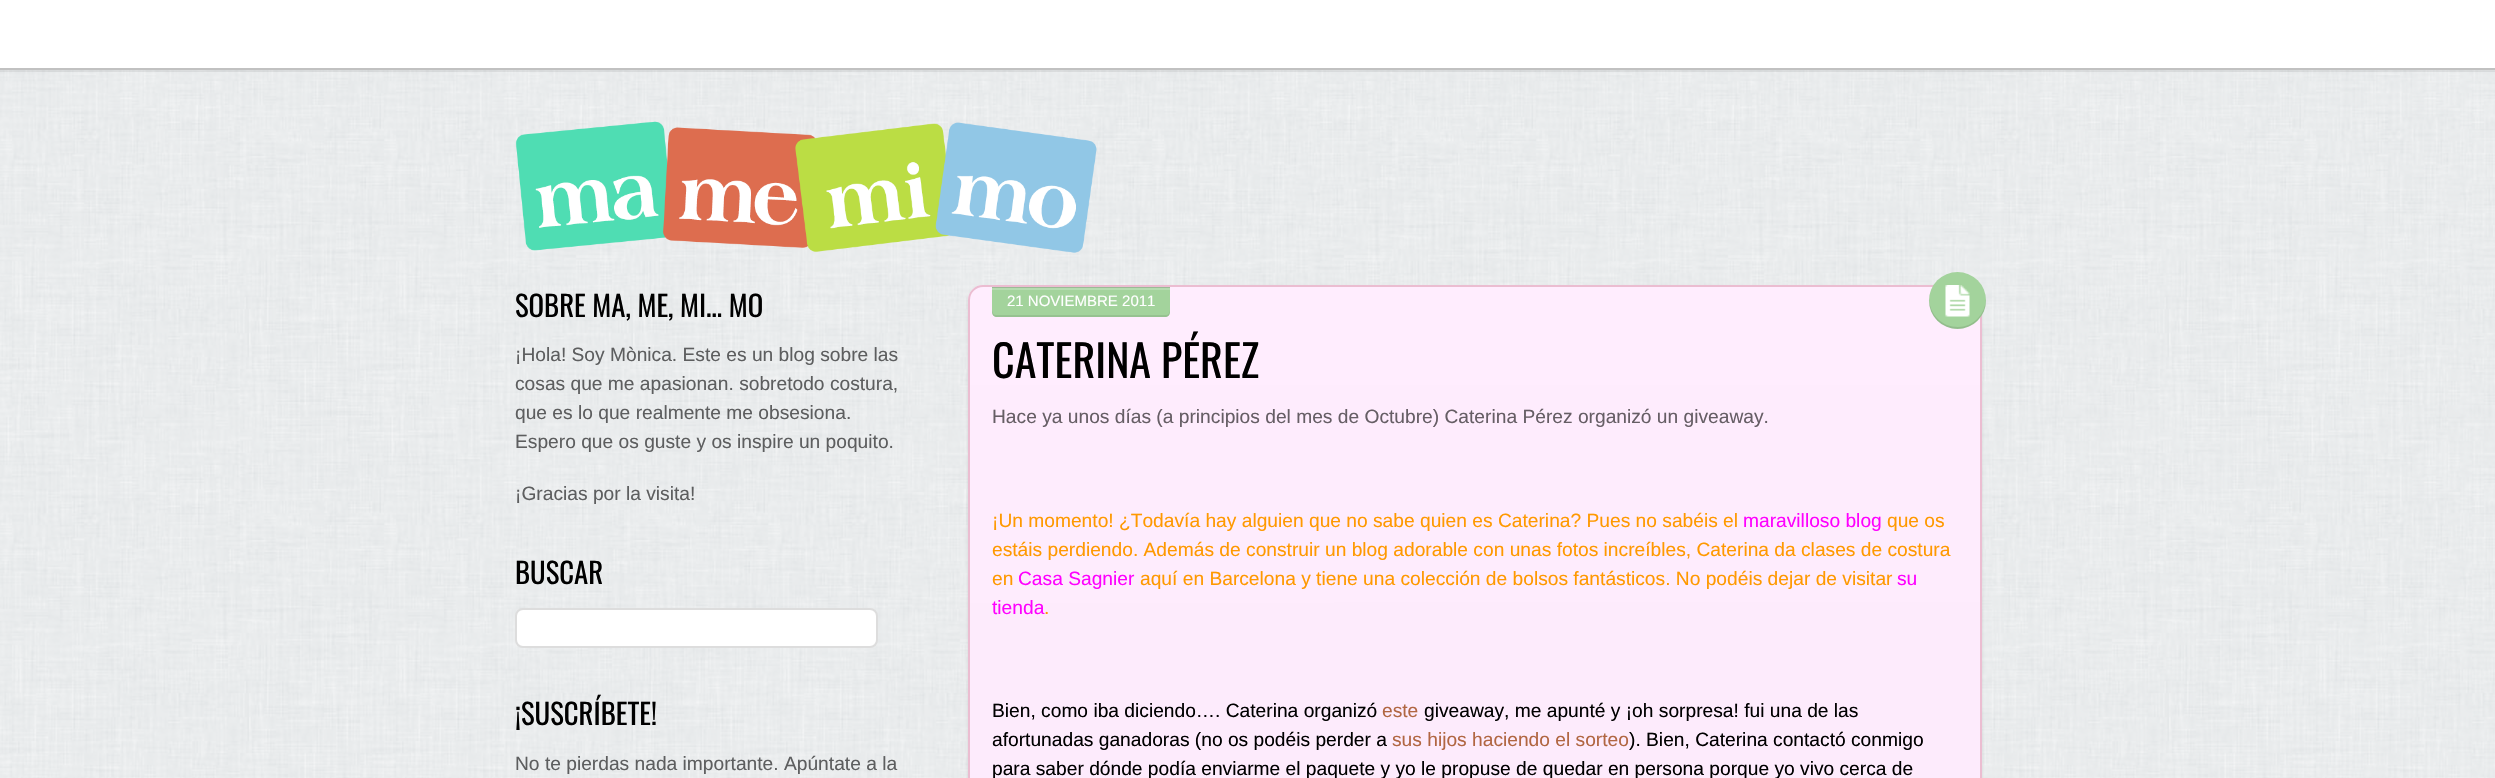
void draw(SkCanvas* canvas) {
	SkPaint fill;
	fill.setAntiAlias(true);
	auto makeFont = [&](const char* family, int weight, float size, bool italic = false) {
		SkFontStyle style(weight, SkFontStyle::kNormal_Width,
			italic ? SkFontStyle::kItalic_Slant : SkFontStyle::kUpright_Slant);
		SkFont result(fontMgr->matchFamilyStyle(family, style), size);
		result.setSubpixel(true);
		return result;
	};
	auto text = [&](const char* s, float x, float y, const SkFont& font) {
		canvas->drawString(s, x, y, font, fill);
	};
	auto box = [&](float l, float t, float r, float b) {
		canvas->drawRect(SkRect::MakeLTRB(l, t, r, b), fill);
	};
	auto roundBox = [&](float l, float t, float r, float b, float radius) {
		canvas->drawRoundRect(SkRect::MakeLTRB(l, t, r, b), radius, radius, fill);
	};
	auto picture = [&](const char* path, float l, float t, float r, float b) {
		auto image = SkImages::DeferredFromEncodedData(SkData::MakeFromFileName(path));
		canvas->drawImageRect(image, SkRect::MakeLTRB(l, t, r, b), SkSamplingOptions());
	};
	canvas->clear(0xFFDADEE0);
	picture("image0.png", 0, 70, 2495, 778);
	fill.setColor(0x12000000);
	box(0, 70, 2495, 72);
	fill.setColor(0xFFFFFFFF);
	box(0, 0, 2495, 68);
	fill.setColor(0xFFC1C1C1);
	box(0, 68, 2495, 70);
	picture("image1.png", 515, 121, 1097, 253);
	fill.setColor(0xFFFFFFFF);
	canvas->drawRoundRect(SkRect::MakeLTRB(516, 609, 877, 647), 7, 7, fill);
	fill.setStyle(SkPaint::kStroke_Style);
	fill.setStrokeWidth(2);
	fill.setColor(0xFFDDDDDD);
	canvas->drawRoundRect(SkRect::MakeLTRB(516, 609, 877, 647), 7, 7, fill);
	fill.setStyle(SkPaint::kFill_Style);
	fill.setColor(0x1A000000);
	fill.setMaskFilter(SkMaskFilter::MakeBlur(kNormal_SkBlurStyle, 1.5f));
	canvas->drawRoundRect(SkRect::MakeLTRB(968, 287, 1982, 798), 15, 15, fill);
	fill.setMaskFilter(nullptr);
	fill.setColor(0xFFFFEBFE);
	roundBox(968, 285, 1982, 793, 15);
	canvas->save();
	canvas->clipPath(SkPathBuilder().moveTo(983, 285).lineTo(1967, 285).cubicTo(1975.5f, 285, 1982, 291.5f, 1982, 300).lineTo(1982, 5822).cubicTo(1982, 5830.5f, 1975.5f, 5837, 1967, 5837).lineTo(983, 5837).cubicTo(974.5f, 5837, 968, 5830.5f, 968, 5822).lineTo(968, 300).cubicTo(968, 291.5f, 974.5f, 285, 983, 285).close().detach(), true);
	{
		const SkColor colors[] = {0x1AFFFFFF, 0x1A000000};
		const float stops[] = {0, 1};
		const SkPoint ends[] = {{1474, 287}, {1475, 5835}};
		fill.setShader(SkGradientShader::MakeLinear(ends, colors, stops, 2, SkTileMode::kClamp));
		fill.setAlpha(255);
	}
	box(968, 287, 1980, 778);
	canvas->restore();
	fill.setStyle(SkPaint::kStroke_Style);
	fill.setShader(nullptr);
	fill.setColor(0xFFEBBDD1);
	canvas->drawRoundRect(SkRect::MakeLTRB(969, 286, 1981, 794), 14, 14, fill);
	fill.setStyle(SkPaint::kFill_Style);
	fill.setColor(0xFFA3D39C);
	canvas->drawPath(SkPathBuilder().moveTo(992, 287).lineTo(1170, 287).lineTo(1170, 312).cubicTo(1170, 315, 1168, 317, 1165, 317).lineTo(997, 317).cubicTo(994, 317, 992, 315, 992, 312).close().detach(), fill);
	fill.setColor(0x14000000);
	canvas->drawPath(SkPathBuilder().moveTo(992, 310).lineTo(992, 312).cubicTo(992, 315, 994, 317, 997, 317).lineTo(1165, 317).cubicTo(1168, 317, 1170, 315, 1170, 312).lineTo(1170, 310).cubicTo(1170, 313, 1168, 315, 1166, 315).lineTo(996, 315).cubicTo(994, 315, 992, 313, 992, 310).close().detach(), fill);
	fill.setColor(0xFF82A97D);
	box(992, 287, 1170, 288);
	fill.setColor(0x33FFFFFF);
	box(992, 287, 1170, 290);
	fill.setColor(0xFFA3D39C);
	canvas->drawCircle(1957.5f, 300.5f, 28.5f, fill);
	picture("image2.png", 1945, 285, 1970, 317);
	fill.setColor(0x1A000000);
	canvas->drawPath(SkPathBuilder().moveTo(1929, 299).cubicTo(1928, 328, 1965, 340, 1981, 316).cubicTo(1985, 311, 1986, 305, 1986, 299).cubicTo(1985, 315, 1973, 327, 1958, 327).cubicTo(1942, 327, 1930, 315, 1929, 299).close().detach(), fill);
	auto font1 = makeFont("Oswald", 400, 28.75f);
	fill.setColor(0xFF000000);
	text("SOBRE MA, ME, MI… MO", 515, 317, font1);
	auto font2 = makeFont("Liberation Sans", 400, 19.2f);
	fill.setColor(0xFF5D5E5F);
	text("¡Hola! Soy Mònica. Este es un blog sobre las", 515, 361, font2);
	text("cosas que me apasionan. sobretodo costura,", 515, 390, font2);
	text("que es lo que realmente me obsesiona.", 515, 419, font2);
	text("Espero que os guste y os inspire un poquito.", 515, 448, font2);
	text("¡Gracias por la visita!", 515, 500, font2);
	fill.setColor(0xFF000000);
	text("BUSCAR", 515, 584, font1);
	text("¡SUSCRÍBETE!", 515, 725, font1);
	fill.setColor(0xFF5D5E5F);
	text("No te pierdas nada importante. Apúntate a la", 515, 770, font2);
	auto font3 = makeFont("Liberation Sans", 400, 15);
	fill.setColor(0xFFFFFFFF);
	text("21 NOVIEMBRE 2011", 1007, 306, font3);
	auto font4 = makeFont("Oswald", 400, 44);
	fill.setColor(0xFF000000);
	text("CATERINA PÉREZ", 992, 378, font4);
	fill.setColor(0xFF665E65);
	text("Hace ya unos días (a principios del mes de Octubre) Caterina Pérez organizó un giveaway.", 992, 423, font2);
	fill.setColor(0xFFFF9900);
	text("¡Un momento! ¿Todavía hay alguien que no sabe quien es Caterina? Pues no sabéis el", 992, 527, font2);
	fill.setColor(0xFFFF00FF);
	text("maravilloso blog", 1743, 527, font2);
	fill.setColor(0xFFFF9900);
	text("que os", 1887, 527, font2);
	text("estáis perdiendo. Además de construir un blog adorable con unas fotos increíbles, Caterina da clases de costura", 992, 556, font2);
	text("en", 992, 585, font2);
	fill.setColor(0xFFFF00FF);
	text("Casa Sagnier", 1018, 585, font2);
	fill.setColor(0xFFFF9900);
	text("aquí en Barcelona y tiene una colección de bolsos fantásticos. No podéis dejar de visitar", 1140, 585, font2);
	fill.setColor(0xFFFF00FF);
	text("su", 1897, 585, font2);
	text("tienda", 992, 614, font2);
	fill.setColor(0xFFFF9900);
	text(".", 1044, 614, font2);
	fill.setColor(0xFF000000);
	text("Bien, como iba diciendo…. Caterina organizó", 992, 717, font2);
	fill.setColor(0xFFB16642);
	text("este", 1382, 717, font2);
	fill.setColor(0xFF000000);
	text("giveaway, me apunté y ¡oh sorpresa! fui una de las", 1424, 717, font2);
	text("afortunadas ganadoras (no os podéis perder a", 992, 746, font2);
	fill.setColor(0xFFB16642);
	text("sus hijos haciendo el sorteo", 1392, 746, font2);
	fill.setColor(0xFF000000);
	text("). Bien, Caterina contactó conmigo", 1629, 746, font2);
	text("para saber dónde podía enviarme el paquete y yo le propuse de quedar en persona porque yo vivo cerca de", 992, 775, font2);
}
